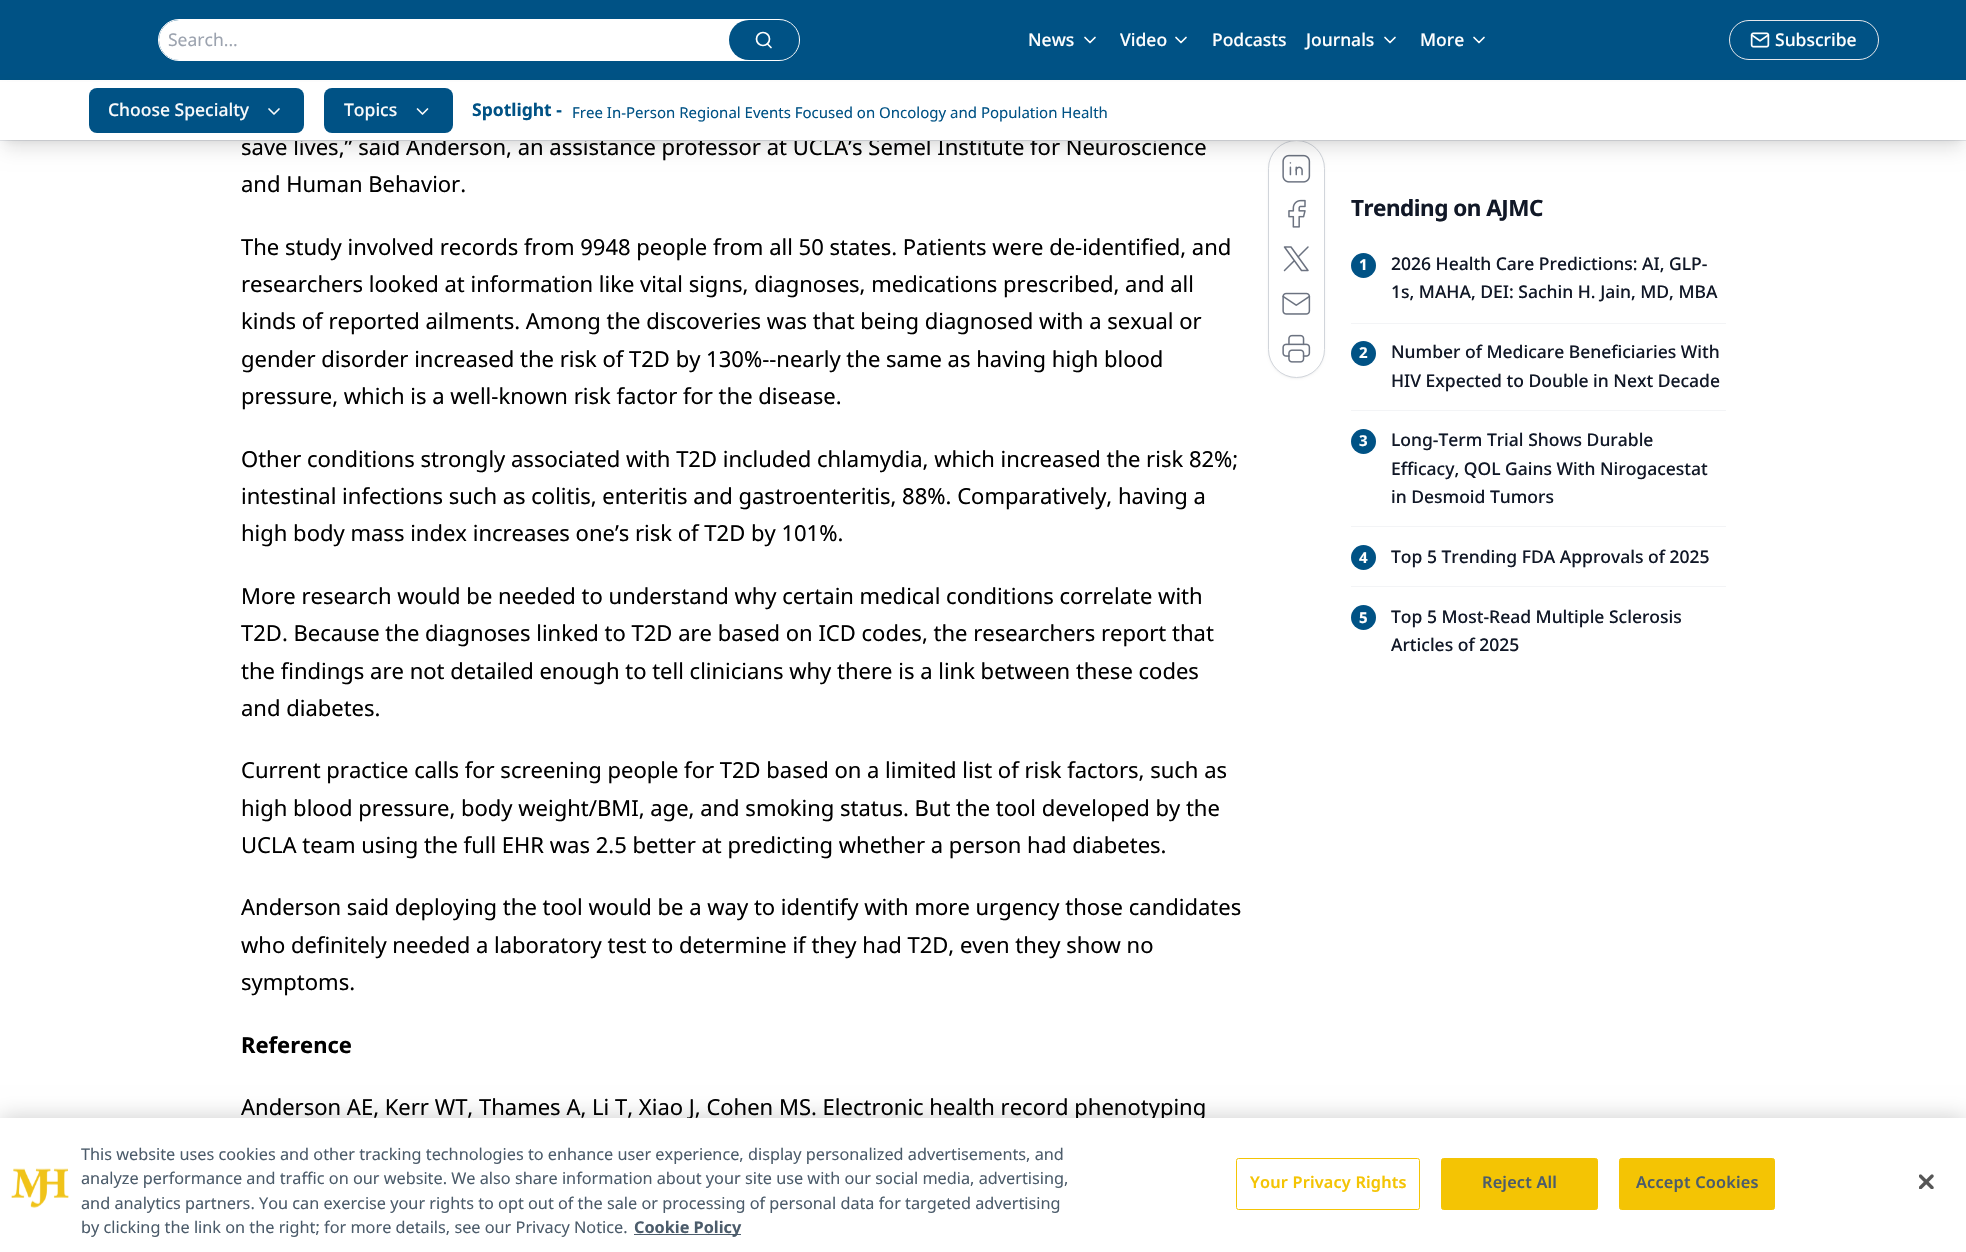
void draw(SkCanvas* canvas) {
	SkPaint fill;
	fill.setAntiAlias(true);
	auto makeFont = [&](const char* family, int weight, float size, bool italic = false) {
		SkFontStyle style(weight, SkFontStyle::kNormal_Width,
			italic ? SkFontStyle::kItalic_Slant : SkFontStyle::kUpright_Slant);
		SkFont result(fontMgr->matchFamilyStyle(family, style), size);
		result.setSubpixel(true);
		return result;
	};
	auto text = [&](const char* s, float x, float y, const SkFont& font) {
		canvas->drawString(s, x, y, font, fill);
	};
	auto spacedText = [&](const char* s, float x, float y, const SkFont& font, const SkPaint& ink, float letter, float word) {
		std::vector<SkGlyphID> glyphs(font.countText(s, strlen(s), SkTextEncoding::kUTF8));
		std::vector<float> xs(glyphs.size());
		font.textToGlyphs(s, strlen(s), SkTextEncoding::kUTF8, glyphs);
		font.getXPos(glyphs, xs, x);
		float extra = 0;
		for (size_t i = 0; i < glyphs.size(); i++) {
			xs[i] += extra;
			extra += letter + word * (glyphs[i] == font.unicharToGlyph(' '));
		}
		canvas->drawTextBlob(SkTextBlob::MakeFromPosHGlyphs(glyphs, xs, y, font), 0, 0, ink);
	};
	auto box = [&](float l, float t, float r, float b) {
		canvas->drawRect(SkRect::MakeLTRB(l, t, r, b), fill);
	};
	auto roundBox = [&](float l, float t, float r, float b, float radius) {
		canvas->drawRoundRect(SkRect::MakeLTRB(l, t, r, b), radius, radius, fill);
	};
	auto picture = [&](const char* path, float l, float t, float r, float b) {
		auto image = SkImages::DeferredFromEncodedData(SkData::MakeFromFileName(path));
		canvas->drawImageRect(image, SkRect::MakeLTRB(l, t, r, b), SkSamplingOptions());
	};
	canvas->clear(0xFFFFFFFF);
	fill.setColor(0xFF005285);
	box(0, 0, 1966, 80);
	fill.setStyle(SkPaint::kStroke_Style);
	fill.setStrokeWidth(1);
	fill.setColor(0xFFFFFFFF);
	canvas->drawRoundRect(SkRect::MakeLTRB(158.5f, 19.5f, 799.5f, 60.5f), 20.5f, 20.5f, fill);
	fill.setStyle(SkPaint::kFill_Style);
	roundBox(159, 20, 799, 60, 20);
	fill.setColor(0xFF005285);
	roundBox(729, 20, 799, 60, 20);
	fill.setStyle(SkPaint::kStroke_Style);
	fill.setStrokeWidth(1.7f);
	fill.setColor(0xFFFFFFFF);
	canvas->drawCircle(763, 39, 6.5f, fill);
	fill.setStrokeCap(SkPaint::kRound_Cap);
	fill.setStrokeJoin(SkPaint::kRound_Join);
	canvas->drawPath(SkPathBuilder().moveTo(771, 47.5f).lineTo(767.5f, 44).detach(), fill);
	canvas->drawPath(SkPathBuilder().moveTo(1085, 37.5f).lineTo(1090, 42.5f).lineTo(1095, 37.5f).detach(), fill);
	canvas->drawPath(SkPathBuilder().moveTo(1176, 37.5f).lineTo(1181, 42.5f).lineTo(1186, 37.5f).detach(), fill);
	canvas->drawPath(SkPathBuilder().moveTo(1385, 37.5f).lineTo(1390, 42.5f).lineTo(1395, 37.5f).detach(), fill);
	canvas->drawPath(SkPathBuilder().moveTo(1474, 37.5f).lineTo(1479, 42.5f).lineTo(1484, 37.5f).detach(), fill);
	fill.setStrokeWidth(1);
	fill.setStrokeCap(SkPaint::kButt_Cap);
	fill.setStrokeJoin(SkPaint::kMiter_Join);
	fill.setColor(0xFFE5E7EB);
	canvas->drawRoundRect(SkRect::MakeLTRB(1729.5f, 20.5f, 1878.5f, 59.5f), 19.5f, 19.5f, fill);
	picture("image0.png", 1750, 32, 1770, 48);
	fill.setStyle(SkPaint::kFill_Style);
	fill.setColor(0x0D000000);
	fill.setMaskFilter(SkMaskFilter::MakeBlur(kNormal_SkBlurStyle, 1));
	canvas->drawRoundRect(SkRect::MakeLTRB(1268, 141, 1325, 379), 28.5f, 28.5f, fill);
	fill.setMaskFilter(nullptr);
	fill.setColor(0xFFFFFFFF);
	canvas->drawRoundRect(SkRect::MakeLTRB(1268.5f, 140.5f, 1324.5f, 377.5f), 28, 28, fill);
	fill.setStyle(SkPaint::kStroke_Style);
	fill.setColor(0xFFD1D5DB);
	canvas->drawRoundRect(SkRect::MakeLTRB(1268.5f, 140.5f, 1324.5f, 377.5f), 28, 28, fill);
	picture("image1.png", 1282, 154, 1311, 183);
	picture("image2.png", 1288, 199, 1306, 228);
	fill.setStrokeWidth(1.5f);
	fill.setStrokeCap(SkPaint::kRound_Cap);
	fill.setStrokeJoin(SkPaint::kRound_Join);
	fill.setColor(0xFF6B7280);
	canvas->drawPath(SkPathBuilder().moveTo(1284.5f, 247).lineTo(1301.5f, 270.5f).lineTo(1308, 270.5f).lineTo(1291, 247).close().moveTo(1284.5f, 270.5f).lineTo(1294.5f, 260.5f).moveTo(1298, 257).lineTo(1308, 247).detach(), fill);
	picture("image3.png", 1282, 292, 1311, 315);
	picture("image4.png", 1282, 334, 1311, 363);
	fill.setStyle(SkPaint::kFill_Style);
	fill.setColor(0xFF005285);
	canvas->drawCircle(1363.5f, 265.5f, 12.5f, fill);
	fill.setColor(0xFFF3F4F6);
	box(1351, 323, 1726, 324);
	fill.setColor(0xFF005285);
	canvas->drawCircle(1363.5f, 353.5f, 12.5f, fill);
	fill.setColor(0xFFF3F4F6);
	box(1351, 410, 1726, 411);
	fill.setColor(0xFF005285);
	canvas->drawCircle(1363.5f, 441.5f, 12.5f, fill);
	fill.setColor(0xFFF3F4F6);
	box(1351, 526, 1726, 527);
	fill.setColor(0xFF005285);
	canvas->drawCircle(1363.5f, 557.5f, 12.5f, fill);
	fill.setColor(0xFFF3F4F6);
	box(1351, 586, 1726, 587);
	fill.setColor(0xFF005285);
	canvas->drawCircle(1363.5f, 617.5f, 12.5f, fill);
	fill.setColor(0x33000000);
	fill.setMaskFilter(SkMaskFilter::MakeBlur(kNormal_SkBlurStyle, 11));
	canvas->drawRect(SkRect::MakeLTRB(0, 1118, 1966, 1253), fill);
	fill.setMaskFilter(nullptr);
	auto font1 = makeFont("Noto Sans", 400, 17.5f);
	fill.setColor(0xFF9CA3AF);
	text("Search...", 168, 46, font1);
	auto font2 = makeFont("Noto Sans", 500, 17.5f);
	fill.setColor(0xFFFFFFFF);
	text("News", 1028, 46, font2);
	text("Video", 1120, 46, font2);
	text("Podcasts", 1212, 46, font2);
	text("Journals", 1306, 46, font2);
	text("More", 1420, 46, font2);
	text("Subscribe", 1775, 46, font2);
	auto font3 = makeFont("Noto Sans", 400, 22);
	fill.setColor(0xFF000000);
	text("save lives,” said Anderson, an assistance professor at UCLA’s Semel Institute for Neuroscience", 241, 155, font3);
	fill.setColor(0xFFE5E7EB);
	box(0, 140, 1966, 141);
	fill.setColor(0x1A000000);
	fill.setMaskFilter(SkMaskFilter::MakeBlur(kNormal_SkBlurStyle, 9.5f));
	canvas->drawRect(SkRect::MakeLTRB(4, 96, 1963, 149), fill);
	fill.setMaskFilter(nullptr);
	fill.setMaskFilter(SkMaskFilter::MakeBlur(kNormal_SkBlurStyle, 4));
	canvas->drawRect(SkRect::MakeLTRB(5, 90, 1961, 140), fill);
	fill.setMaskFilter(nullptr);
	fill.setColor(0xFFFFFFFF);
	box(0, 82, 1966, 140);
	fill.setColor(0xFF005285);
	roundBox(324, 88, 453, 133, 8);
	fill.setStyle(SkPaint::kStroke_Style);
	fill.setStrokeWidth(1.7f);
	fill.setColor(0xFFF9FAFB);
	canvas->drawPath(SkPathBuilder().moveTo(417.5f, 109).lineTo(422.5f, 114).lineTo(427.5f, 109).detach(), fill);
	fill.setStyle(SkPaint::kFill_Style);
	fill.setColor(0xFF005285);
	roundBox(89, 88, 304, 133, 8);
	fill.setStyle(SkPaint::kStroke_Style);
	fill.setColor(0xFFF9FAFB);
	canvas->drawPath(SkPathBuilder().moveTo(269, 109).lineTo(274, 114).lineTo(279, 109).detach(), fill);
	auto font4 = makeFont("Noto Sans", 400, 15);
	fill.setStyle(SkPaint::kFill_Style);
	fill.setColor(0xFF005285);
	text("Free In-Person Regional Events Focused on Oncology and Population Health", 572, 118, font4);
	auto font5 = makeFont("Noto Sans", 700, 17.5f);
	text("Spotlight -", 472, 116, font5);
	fill.setColor(0xFFF9FAFB);
	text("Topics", 344, 116, font2);
	text("Choose Specialty", 108, 116, font2);
	fill.setColor(0xFF000000);
	text("and Human Behavior.", 241, 192, font3);
	text("The study involved records from 9948 people from all 50 states. Patients were de-identified, and", 241, 255, font3);
	text("researchers looked at information like vital signs, diagnoses, medications prescribed, and all", 241, 292, font3);
	text("kinds of reported ailments. Among the discoveries was that being diagnosed with a sexual or", 241, 329, font3);
	text("gender disorder increased the risk of T2D by 130%--nearly the same as having high blood", 241, 367, font3);
	text("pressure, which is a well-known risk factor for the disease.", 241, 404, font3);
	text("Other conditions strongly associated with T2D included chlamydia, which increased the risk 82%;", 241, 467, font3);
	text("intestinal infections such as colitis, enteritis and gastroenteritis, 88%. Comparatively, having a", 241, 504, font3);
	text("high body mass index increases one’s risk of T2D by 101%.", 241, 541, font3);
	text("More research would be needed to understand why certain medical conditions correlate with", 241, 604, font3);
	text("T2D. Because the diagnoses linked to T2D are based on ICD codes, the researchers report that", 241, 641, font3);
	text("the findings are not detailed enough to tell clinicians why there is a link between these codes", 241, 679, font3);
	text("and diabetes.", 241, 716, font3);
	text("Current practice calls for screening people for T2D based on a limited list of risk factors, such as", 241, 778, font3);
	text("high blood pressure, body weight/BMI, age, and smoking status. But the tool developed by the", 241, 816, font3);
	text("UCLA team using the full EHR was 2.5 better at predicting whether a person had diabetes.", 241, 853, font3);
	text("Anderson said deploying the tool would be a way to identify with more urgency those candidates", 241, 915, font3);
	text("who definitely needed a laboratory test to determine if they had T2D, even they show no", 241, 953, font3);
	text("symptoms.", 241, 990, font3);
	auto font6 = makeFont("Noto Sans", 700, 22);
	text("Reference", 241, 1053, font6);
	text("Anderson AE, Kerr WT, Thames A, Li T, Xiao J, Cohen MS. Electronic health record phenotyping", 241, 1115, font3);
	auto font7 = makeFont("Noto Sans", 700, 22.5f);
	fill.setColor(0xFF111827);
	spacedText("Trending on AJMC", 1351, 216, font7, fill, -0.5f, 0);
	auto font8 = makeFont("Noto Sans", 700, 15);
	fill.setColor(0xFFFFFFFF);
	text("1", 1359, 270, font8);
	fill.setColor(0xFF111827);
	text("2026 Health Care Predictions: AI, GLP-", 1391, 270, font2);
	text("1s, MAHA, DEI: Sachin H. Jain, MD, MBA", 1391, 298, font2);
	fill.setColor(0xFFFFFFFF);
	text("2", 1359, 358, font8);
	fill.setColor(0xFF111827);
	text("Number of Medicare Beneficiaries With", 1391, 358, font2);
	text("HIV Expected to Double in Next Decade", 1391, 387, font2);
	fill.setColor(0xFFFFFFFF);
	text("3", 1359, 446, font8);
	fill.setColor(0xFF111827);
	text("Long-Term Trial Shows Durable", 1391, 446, font2);
	text("Efficacy, QOL Gains With Nirogacestat", 1391, 475, font2);
	text("in Desmoid Tumors", 1391, 503, font2);
	fill.setColor(0xFFFFFFFF);
	text("4", 1359, 563, font8);
	fill.setColor(0xFF111827);
	text("Top 5 Trending FDA Approvals of 2025", 1391, 563, font2);
	fill.setColor(0xFFFFFFFF);
	text("5", 1359, 623, font8);
	fill.setColor(0xFF111827);
	text("Top 5 Most-Read Multiple Sclerosis", 1391, 623, font2);
	text("Articles of 2025", 1391, 651, font2);
	fill.setColor(0xFFFFFFFF);
	box(0, 1118, 1966, 1252);
	picture("image5.png", 11, 1168, 69, 1208);
	auto font9 = makeFont("Noto Sans", 400, 16.25f);
	fill.setColor(0xFF4C5C6B);
	text("This website uses cookies and other tracking technologies to enhance user experience, display personalized advertisements, and", 81, 1160, font9);
	text("analyze performance and traffic on our website. We also share information about your site use with our social media, advertising,", 81, 1184, font9);
	text("and analytics partners. You can exercise your rights to opt out of the sale or processing of personal data for targeted advertising", 81, 1209, font9);
	text("by clicking the link on the right; for more details, see our Privacy Notice.", 81, 1233, font9);
	box(634, 1234, 741, 1235);
	auto font10 = makeFont("Noto Sans", 700, 16.25f);
	text("Cookie Policy", 634, 1233, font10);
	fill.setStyle(SkPaint::kStroke_Style);
	fill.setStrokeWidth(1);
	fill.setStrokeCap(SkPaint::kButt_Cap);
	fill.setStrokeJoin(SkPaint::kMiter_Join);
	fill.setColor(0xFFF4C404);
	canvas->drawRoundRect(SkRect::MakeLTRB(1236.5f, 1158.5f, 1419.5f, 1209.5f), 2, 2, fill);
	auto font11 = makeFont("Noto Sans", 600, 16.25f);
	fill.setStyle(SkPaint::kFill_Style);
	spacedText("Your Privacy Rights", 1250, 1188, font11, fill, 0.2f, 0);
	canvas->drawRoundRect(SkRect::MakeLTRB(1441.5f, 1158.5f, 1597.5f, 1209.5f), 2, 2, fill);
	fill.setStyle(SkPaint::kStroke_Style);
	canvas->drawRoundRect(SkRect::MakeLTRB(1441.5f, 1158.5f, 1597.5f, 1209.5f), 2, 2, fill);
	fill.setStyle(SkPaint::kFill_Style);
	fill.setColor(0xFF4C5C6B);
	spacedText("Reject All", 1482, 1188, font11, fill, 0.2f, 0);
	fill.setColor(0xFFF4C404);
	canvas->drawRoundRect(SkRect::MakeLTRB(1619.5f, 1158.5f, 1774.5f, 1209.5f), 2, 2, fill);
	fill.setStyle(SkPaint::kStroke_Style);
	canvas->drawRoundRect(SkRect::MakeLTRB(1619.5f, 1158.5f, 1774.5f, 1209.5f), 2, 2, fill);
	fill.setStyle(SkPaint::kFill_Style);
	fill.setColor(0xFF4C5C6B);
	spacedText("Accept Cookies", 1636, 1188, font11, fill, 0.2f, 0);
	picture("image6.png", 1919, 1174, 1934, 1189);
}
